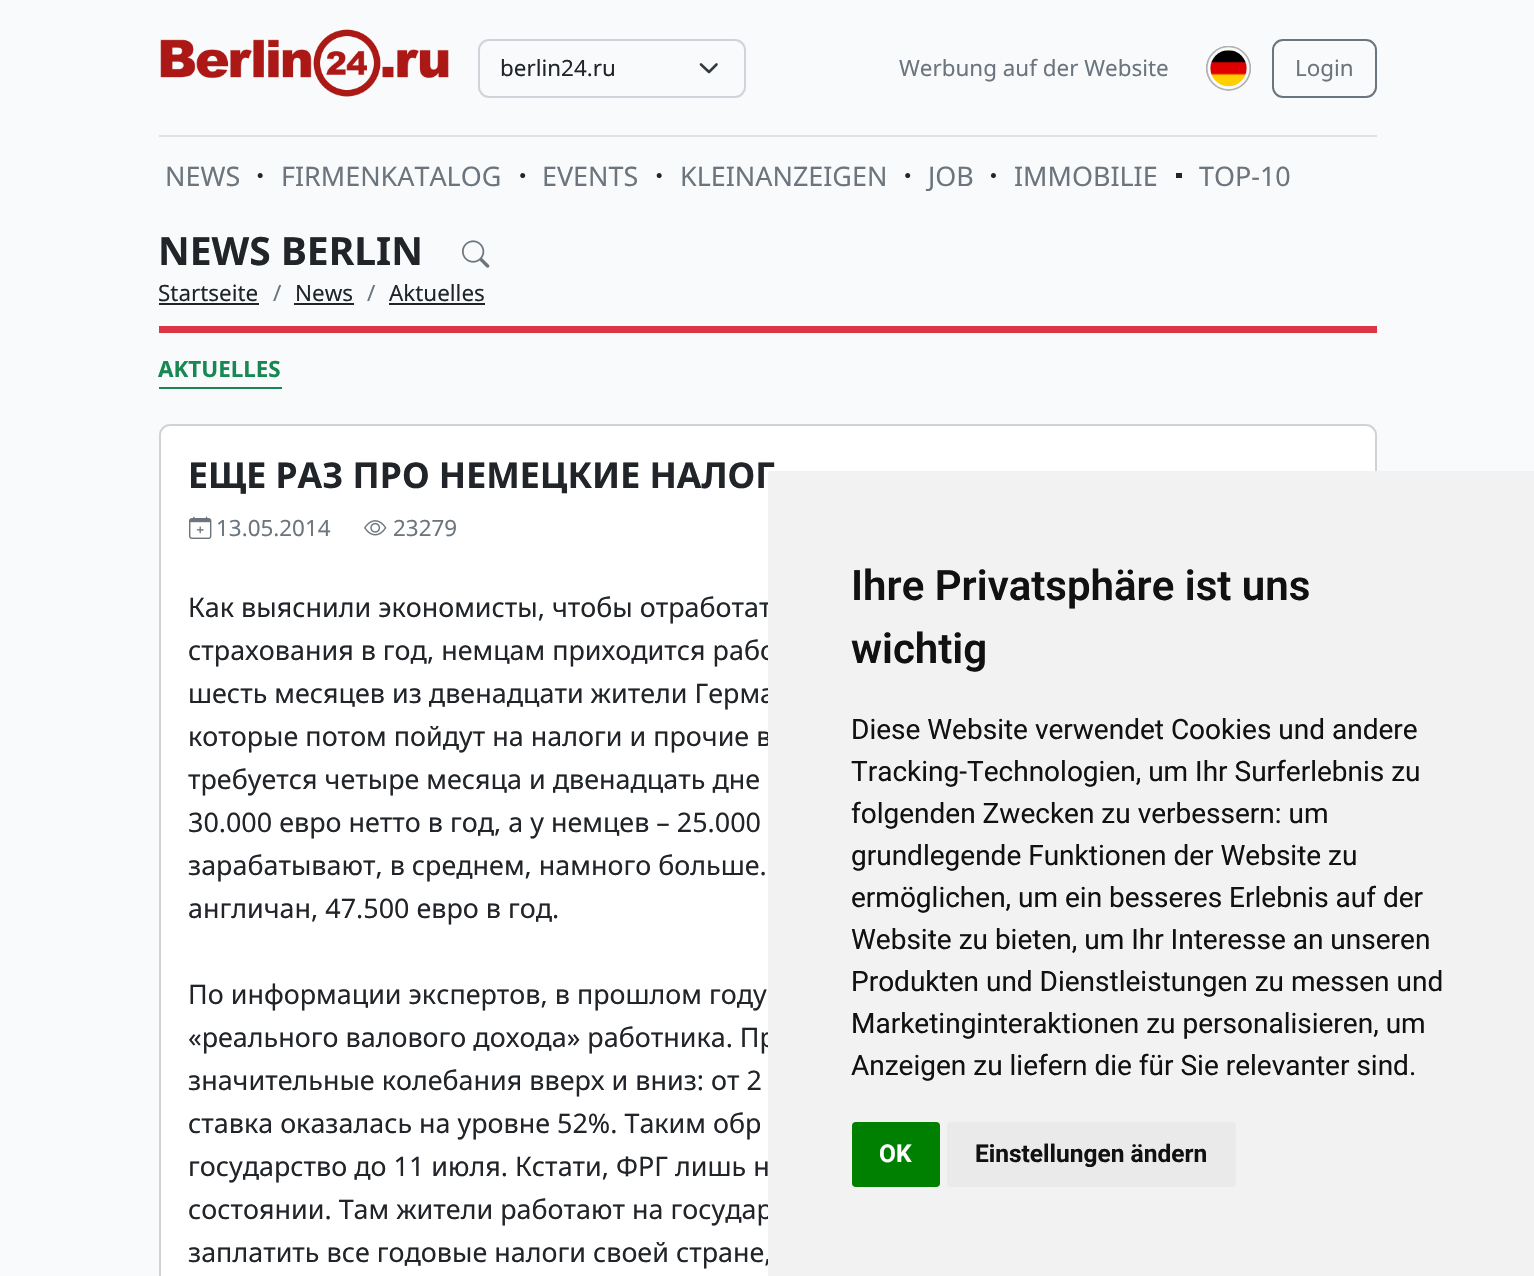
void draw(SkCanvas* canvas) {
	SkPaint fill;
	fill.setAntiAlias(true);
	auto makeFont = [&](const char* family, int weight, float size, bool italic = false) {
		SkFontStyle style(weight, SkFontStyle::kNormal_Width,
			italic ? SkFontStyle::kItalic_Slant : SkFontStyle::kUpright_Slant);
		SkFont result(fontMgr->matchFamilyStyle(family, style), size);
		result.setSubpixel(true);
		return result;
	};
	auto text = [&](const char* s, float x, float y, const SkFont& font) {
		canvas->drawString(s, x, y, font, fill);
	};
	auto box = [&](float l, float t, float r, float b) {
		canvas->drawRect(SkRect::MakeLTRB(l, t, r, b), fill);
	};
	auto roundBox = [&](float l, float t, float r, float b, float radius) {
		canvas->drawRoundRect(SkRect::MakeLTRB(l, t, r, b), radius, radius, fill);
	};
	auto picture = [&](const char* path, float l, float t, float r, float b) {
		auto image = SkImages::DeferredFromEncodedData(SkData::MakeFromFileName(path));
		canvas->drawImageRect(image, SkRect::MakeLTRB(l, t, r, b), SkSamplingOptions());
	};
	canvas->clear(0xFFF8FAFC);
	fill.setColor(0xFFDEE2E6);
	box(159, 135, 1377, 137);
	picture("image0.png", 160, 29, 449, 97);
	fill.setStyle(SkPaint::kStroke_Style);
	fill.setStrokeWidth(2.6f);
	fill.setStrokeCap(SkPaint::kRound_Cap);
	fill.setStrokeJoin(SkPaint::kRound_Join);
	fill.setColor(0xFF343A40);
	canvas->drawPath(SkPathBuilder().moveTo(701, 64.5f).lineTo(709, 72).lineTo(716.5f, 64.5f).detach(), fill);
	fill.setStrokeWidth(2);
	fill.setStrokeCap(SkPaint::kButt_Cap);
	fill.setStrokeJoin(SkPaint::kMiter_Join);
	fill.setColor(0xFFCED4DA);
	canvas->drawRoundRect(SkRect::MakeLTRB(479, 40, 745, 97), 10, 10, fill);
	picture("image1.png", 1206, 46, 1251, 91);
	fill.setColor(0xFF6C757D);
	canvas->drawRoundRect(SkRect::MakeLTRB(1273, 40, 1376, 97), 10, 10, fill);
	picture("image2.png", 257, 173, 263, 179);
	picture("image3.png", 520, 173, 526, 179);
	picture("image2.png", 656, 173, 662, 179);
	picture("image3.png", 905, 173, 911, 179);
	picture("image4.png", 990, 173, 996, 179);
	fill.setStyle(SkPaint::kFill_Style);
	fill.setColor(0xFF212529);
	box(1176, 173, 1182, 178);
	fill.setColor(0xFFDC3545);
	box(159, 326, 1377, 333);
	picture("image5.png", 462, 240, 490, 268);
	fill.setColor(0xFF212529);
	box(159, 303, 259, 305);
	box(294, 303, 354, 305);
	box(389, 303, 485, 305);
	fill.setColor(0xFF198754);
	box(159, 387, 282, 389);
	fill.setColor(0xFFFFFFFF);
	canvas->drawRoundRect(SkRect::MakeLTRB(160, 425, 1376, 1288), 10, 10, fill);
	fill.setStyle(SkPaint::kStroke_Style);
	fill.setColor(0xFFD2D2D2);
	canvas->drawRoundRect(SkRect::MakeLTRB(160, 425, 1376, 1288), 10, 10, fill);
	picture("image6.png", 189, 516, 212, 539);
	picture("image7.png", 364, 520, 387, 536);
	auto font1 = makeFont("Noto Sans", 400, 22.4f);
	fill.setStyle(SkPaint::kFill_Style);
	fill.setColor(0xFF212529);
	text("berlin24.ru", 500, 76, font1);
	fill.setColor(0xFF6C757D);
	text("Werbung auf der Website", 899, 76, font1);
	text("Login", 1295, 76, font1);
	auto font2 = makeFont("Noto Sans", 400, 26.9f);
	text("NEWS", 165, 186, font2);
	text("FIRMENKATALOG", 281, 186, font2);
	text("EVENTS", 542, 186, font2);
	text("KLEINANZEIGEN", 680, 186, font2);
	text("JOB", 928, 186, font2);
	text("IMMOBILIE", 1014, 186, font2);
	text("TOP-10", 1199, 186, font2);
	auto font3 = makeFont("Noto Sans", 700, 39);
	fill.setColor(0xFF212529);
	text("NEWS BERLIN", 158, 265, font3);
	text("Startseite", 158, 301, font1);
	fill.setColor(0xFF6C757D);
	text("/", 273, 301, font1);
	fill.setColor(0xFF212529);
	text("News", 295, 301, font1);
	fill.setColor(0xFF6C757D);
	text("/", 367, 301, font1);
	fill.setColor(0xFF212529);
	text("Aktuelles", 389, 301, font1);
	auto font4 = makeFont("Noto Sans", 700, 22.4f);
	fill.setColor(0xFF198754);
	text("AKTUELLES", 158, 377, font4);
	auto font5 = makeFont("Noto Sans", 700, 35.6f);
	fill.setColor(0xFF212529);
	text("ЕЩЕ РАЗ ПРО НЕМЕЦКИЕ НАЛОГ", 188, 488, font5);
	fill.setColor(0xFF6C757D);
	text("13.05.2014", 216, 536, font1);
	text("23279", 393, 536, font1);
	fill.setColor(0xFF212529);
	text("Как выяснили экономисты, чтобы отработат", 188, 617, font2);
	text("страхования в год, немцам приходится рабо", 188, 660, font2);
	text("шесть месяцев из двенадцати жители Герма", 188, 703, font2);
	text("которые потом пойдут на налоги и прочие в", 188, 746, font2);
	text("требуется четыре месяца и двенадцать дне", 188, 789, font2);
	text("30.000 евро нетто в год, а у немцев – 25.000", 188, 832, font2);
	text("зарабатывают, в среднем, намного больше.", 188, 875, font2);
	text("англичан, 47.500 евро в год.", 188, 918, font2);
	text("По информации экспертов, в прошлом году", 188, 1004, font2);
	text("«реального валового дохода» работника. Пр", 188, 1047, font2);
	text("значительные колебания вверх и вниз: от 2", 188, 1090, font2);
	text("ставка оказалась на уровне 52%. Таким обр", 188, 1133, font2);
	text("государство до 11 июля. Кстати, ФРГ лишь н", 188, 1176, font2);
	text("состоянии. Там жители работают на государ", 188, 1219, font2);
	text("заплатить все годовые налоги своей стране,", 188, 1262, font2);
	fill.setColor(0xFFF2F2F2);
	box(768, 471, 1534, 1276);
	auto font6 = makeFont("Roboto", 600, 42);
	fill.setColor(0xFF111111);
	text("Ihre Privatsphäre ist uns", 851, 600, font6);
	text("wichtig", 851, 663, font6);
	auto font7 = makeFont("Roboto", 400, 28);
	text("Diese Website verwendet Cookies und andere", 851, 739, font7);
	text("Tracking-Technologien, um Ihr Surferlebnis zu", 851, 781, font7);
	text("folgenden Zwecken zu verbessern: um", 851, 823, font7);
	text("grundlegende Funktionen der Website zu", 851, 865, font7);
	text("ermöglichen, um ein besseres Erlebnis auf der", 851, 907, font7);
	text("Website zu bieten, um Ihr Interesse an unseren", 851, 949, font7);
	text("Produkten und Dienstleistungen zu messen und", 851, 991, font7);
	text("Marketinginteraktionen zu personalisieren, um", 851, 1033, font7);
	text("Anzeigen zu liefern die für Sie relevanter sind.", 851, 1075, font7);
	fill.setColor(0xFF008000);
	roundBox(852, 1122, 940, 1187, 4);
	auto font8 = makeFont("Roboto", 700, 24.5f);
	fill.setColor(0xFFFFFFFF);
	text("OK", 879, 1162, font8);
	fill.setColor(0xFFEAEAEA);
	roundBox(947, 1122, 1236, 1187, 4);
	fill.setColor(0xFF111111);
	text("Einstellungen ändern", 975, 1162, font8);
}
